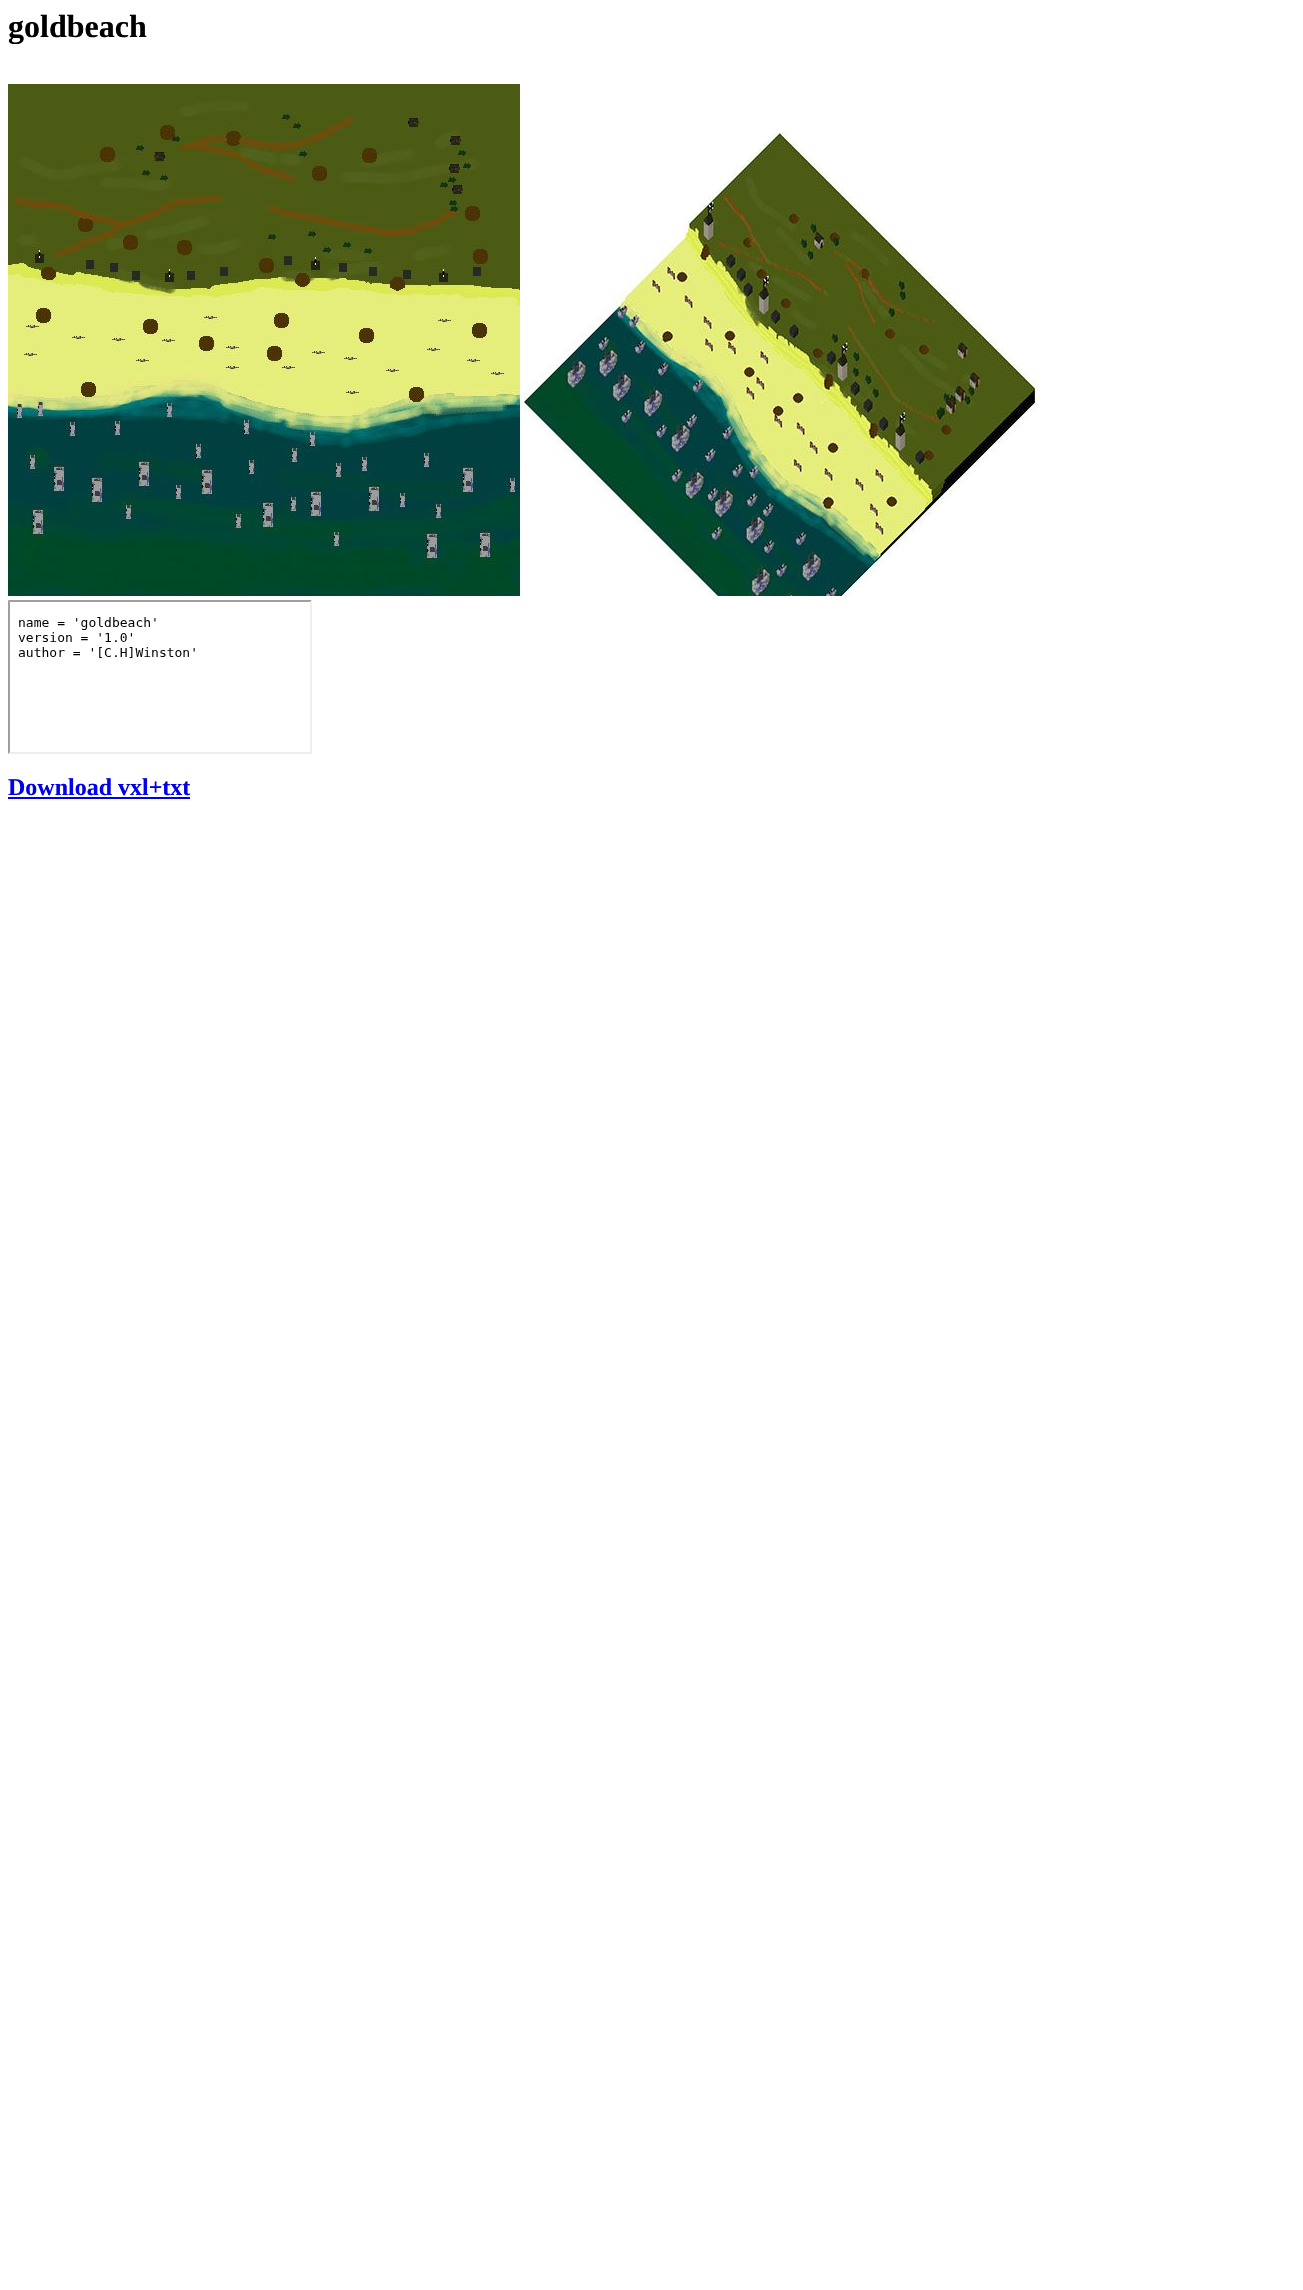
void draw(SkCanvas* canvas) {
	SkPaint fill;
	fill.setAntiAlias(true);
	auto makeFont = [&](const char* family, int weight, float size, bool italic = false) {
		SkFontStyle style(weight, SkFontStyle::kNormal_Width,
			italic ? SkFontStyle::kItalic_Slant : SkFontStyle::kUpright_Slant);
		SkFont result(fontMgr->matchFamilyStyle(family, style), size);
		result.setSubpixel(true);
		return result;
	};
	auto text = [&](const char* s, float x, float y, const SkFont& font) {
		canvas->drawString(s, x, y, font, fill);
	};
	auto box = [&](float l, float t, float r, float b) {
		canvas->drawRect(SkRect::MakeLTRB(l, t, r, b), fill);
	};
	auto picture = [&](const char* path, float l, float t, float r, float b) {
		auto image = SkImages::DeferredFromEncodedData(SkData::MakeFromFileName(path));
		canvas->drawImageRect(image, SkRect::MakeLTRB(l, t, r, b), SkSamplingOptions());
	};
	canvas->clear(0xFFFFFFFF);
	picture("image0.png", 8, 84, 520, 596);
	picture("image1.png", 524, 132, 1036, 596);
	fill.setColor(0xFF9F9F9F);
	canvas->drawPath(SkPathBuilder().moveTo(8, 600).lineTo(312, 600).lineTo(310, 602).lineTo(10, 602).close().detach(), fill);
	fill.setColor(0xFFEEEEEE);
	canvas->drawPath(SkPathBuilder().moveTo(312, 600).lineTo(312, 754).lineTo(310, 752).lineTo(310, 602).close().detach(), fill);
	canvas->drawPath(SkPathBuilder().moveTo(312, 754).lineTo(8, 754).lineTo(10, 752).lineTo(310, 752).close().detach(), fill);
	fill.setColor(0xFF9F9F9F);
	canvas->drawPath(SkPathBuilder().moveTo(8, 754).lineTo(8, 600).lineTo(10, 602).lineTo(10, 752).close().detach(), fill);
	picture("image2.png", 18, 617, 195, 658);
	fill.setColor(0xFF0000EE);
	box(8, 797, 190, 799);
	auto font1 = makeFont("Liberation Serif", 700, 32);
	fill.setColor(0xFF000000);
	text("goldbeach", 8, 37, font1);
	auto font2 = makeFont("Liberation Serif", 700, 24);
	fill.setColor(0xFF0000EE);
	text("Download vxl+txt", 8, 795, font2);
}
